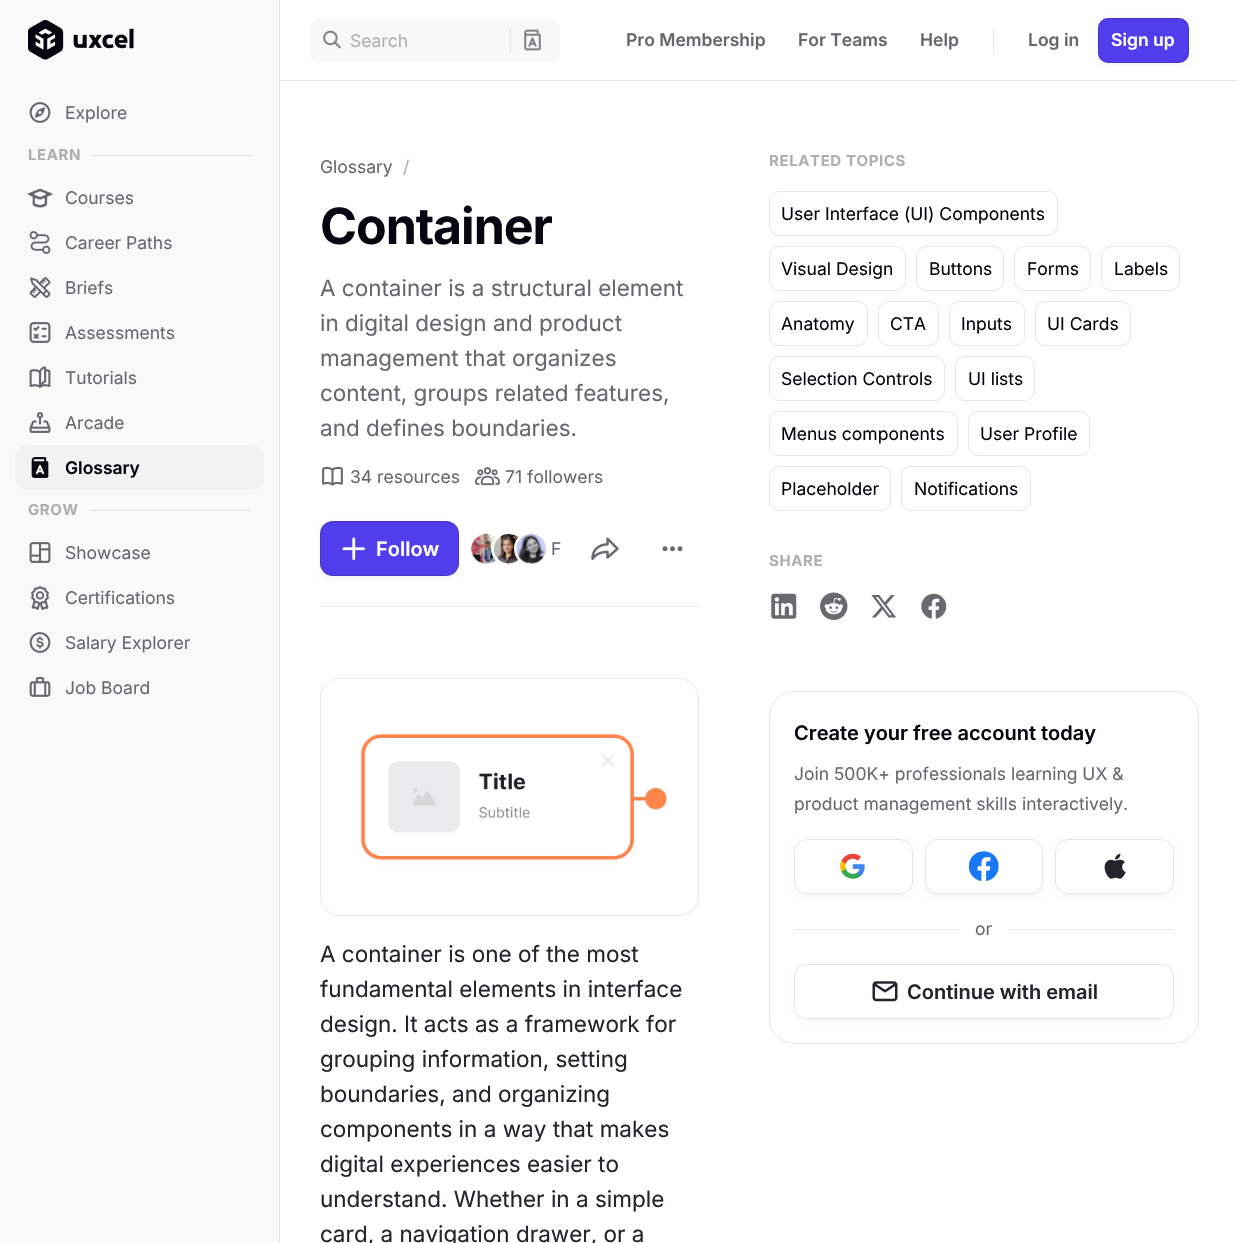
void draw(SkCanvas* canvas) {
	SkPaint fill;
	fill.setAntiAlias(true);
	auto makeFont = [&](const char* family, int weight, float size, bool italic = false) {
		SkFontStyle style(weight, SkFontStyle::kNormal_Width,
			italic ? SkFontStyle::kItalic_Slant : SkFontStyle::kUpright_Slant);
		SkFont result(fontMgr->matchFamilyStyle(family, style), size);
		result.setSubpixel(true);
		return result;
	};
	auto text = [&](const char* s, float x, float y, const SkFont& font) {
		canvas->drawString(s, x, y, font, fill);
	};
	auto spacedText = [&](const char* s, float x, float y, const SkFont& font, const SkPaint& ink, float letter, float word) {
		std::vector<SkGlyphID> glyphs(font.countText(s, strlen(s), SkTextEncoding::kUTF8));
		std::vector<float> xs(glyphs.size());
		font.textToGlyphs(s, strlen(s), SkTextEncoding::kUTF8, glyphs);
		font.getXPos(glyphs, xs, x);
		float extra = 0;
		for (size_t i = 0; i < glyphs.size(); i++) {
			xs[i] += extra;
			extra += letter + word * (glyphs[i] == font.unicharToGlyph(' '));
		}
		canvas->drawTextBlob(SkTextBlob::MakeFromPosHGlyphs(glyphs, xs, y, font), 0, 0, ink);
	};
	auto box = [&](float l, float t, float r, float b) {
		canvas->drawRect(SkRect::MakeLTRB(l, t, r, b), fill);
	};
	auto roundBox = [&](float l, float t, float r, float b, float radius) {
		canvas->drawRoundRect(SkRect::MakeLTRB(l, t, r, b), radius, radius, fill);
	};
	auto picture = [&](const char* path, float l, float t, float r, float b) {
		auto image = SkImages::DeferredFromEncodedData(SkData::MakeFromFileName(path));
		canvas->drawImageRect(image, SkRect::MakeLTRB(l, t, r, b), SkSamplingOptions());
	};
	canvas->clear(0xFFFFFFFF);
	fill.setColor(0xFFF9F9F9);
	box(0, 0, 279, 1243);
	fill.setColor(0xFFE1E1E2);
	box(279, 0, 280, 1243);
	picture("image0.png", 28, 20, 134, 60);
	picture("image1.png", 29, 102, 51, 123);
	box(91, 155, 251, 156);
	picture("image2.png", 28, 188, 53, 208);
	picture("image3.png", 29, 231, 51, 254);
	picture("image4.png", 29, 277, 51, 298);
	picture("image5.png", 29, 322, 51, 343);
	picture("image6.png", 29, 366, 51, 388);
	picture("image7.png", 29, 412, 51, 433);
	fill.setColor(0xFFF2F2F2);
	roundBox(15, 445, 264, 490, 13);
	picture("image8.png", 31, 457, 49, 478);
	fill.setColor(0xFFE1E1E2);
	box(89, 510, 251, 511);
	picture("image9.png", 29, 542, 51, 563);
	picture("image10.png", 31, 586, 49, 610);
	picture("image11.png", 29, 632, 51, 653);
	picture("image12.png", 29, 677, 51, 697);
	fill.setColor(0xFFE6E6E7);
	box(280, 80, 1238, 81);
	fill.setColor(0xFFF8F8F8);
	roundBox(310, 18, 560, 63, 10);
	picture("image13.png", 323, 30, 341, 49);
	fill.setColor(0xFFE0E0E1);
	box(510, 28, 511, 53);
	picture("image14.png", 524, 29, 541, 51);
	fill.setColor(0xFFE6E6E7);
	box(993, 28, 994, 53);
	fill.setColor(0x0A05060F);
	fill.setMaskFilter(SkMaskFilter::MakeBlur(kNormal_SkBlurStyle, 2.5f));
	canvas->drawRoundRect(SkRect::MakeLTRB(1098, 20, 1189, 65), 10, 10, fill);
	fill.setMaskFilter(nullptr);
	fill.setColor(0xFF513DEB);
	roundBox(1098, 18, 1189, 63, 10);
	fill.setStyle(SkPaint::kStroke_Style);
	fill.setStrokeWidth(1);
	fill.setColor(0x2905060F);
	canvas->drawRoundRect(SkRect::MakeLTRB(1098.5f, 18.5f, 1188.5f, 62.5f), 9.5f, 9.5f, fill);
	fill.setStyle(SkPaint::kFill_Style);
	fill.setColor(0xFFE6E6E7);
	box(320, 606, 699, 607);
	picture("image15.png", 322, 466, 343, 486);
	picture("image16.png", 475, 467, 500, 486);
	fill.setColor(0x0A05060F);
	fill.setMaskFilter(SkMaskFilter::MakeBlur(kNormal_SkBlurStyle, 2.5f));
	canvas->drawRoundRect(SkRect::MakeLTRB(320, 524, 459, 579), 13, 13, fill);
	fill.setMaskFilter(nullptr);
	fill.setColor(0xFF513DEB);
	roundBox(320, 521, 459, 576, 13);
	fill.setStyle(SkPaint::kStroke_Style);
	fill.setColor(0x2905060F);
	canvas->drawRoundRect(SkRect::MakeLTRB(320.5f, 521.5f, 458.5f, 575.5f), 12.5f, 12.5f, fill);
	picture("image17.png", 342, 537, 365, 560);
	picture("image18.png", 471, 533, 499, 564);
	fill.setStrokeWidth(3);
	fill.setColor(0xFFFFFFFF);
	canvas->drawCircle(508.5f, 548.5f, 16, fill);
	picture("image19.png", 493, 533, 521, 564);
	canvas->drawCircle(531.5f, 548.5f, 16, fill);
	picture("image20.png", 516, 533, 547, 564);
	picture("image21.png", 591, 537, 619, 560);
	picture("image22.png", 662, 546, 683, 552);
	fill.setStrokeWidth(1);
	fill.setColor(0xFFE6E6E7);
	canvas->drawRoundRect(SkRect::MakeLTRB(320.5f, 678.5f, 698.5f, 915.5f), 19.5f, 19.5f, fill);
	picture("image23.png", 321, 679, 693, 915);
	canvas->drawRoundRect(SkRect::MakeLTRB(769.5f, 191.5f, 1057.5f, 235.5f), 9.5f, 9.5f, fill);
	canvas->drawRoundRect(SkRect::MakeLTRB(769.5f, 246.5f, 905.5f, 290.5f), 9.5f, 9.5f, fill);
	canvas->drawRoundRect(SkRect::MakeLTRB(916.5f, 246.5f, 1003.5f, 290.5f), 9.5f, 9.5f, fill);
	canvas->drawRoundRect(SkRect::MakeLTRB(1014.5f, 246.5f, 1090.5f, 290.5f), 9.5f, 9.5f, fill);
	canvas->drawRoundRect(SkRect::MakeLTRB(1101.5f, 246.5f, 1179.5f, 290.5f), 9.5f, 9.5f, fill);
	canvas->drawRoundRect(SkRect::MakeLTRB(769.5f, 301.5f, 867.5f, 345.5f), 9.5f, 9.5f, fill);
	canvas->drawRoundRect(SkRect::MakeLTRB(878.5f, 301.5f, 938.5f, 345.5f), 9.5f, 9.5f, fill);
	canvas->drawRoundRect(SkRect::MakeLTRB(949.5f, 301.5f, 1024.5f, 345.5f), 9.5f, 9.5f, fill);
	canvas->drawRoundRect(SkRect::MakeLTRB(1035.5f, 301.5f, 1130.5f, 345.5f), 9.5f, 9.5f, fill);
	canvas->drawRoundRect(SkRect::MakeLTRB(769.5f, 356.5f, 944.5f, 400.5f), 9.5f, 9.5f, fill);
	canvas->drawRoundRect(SkRect::MakeLTRB(955.5f, 356.5f, 1034.5f, 400.5f), 9.5f, 9.5f, fill);
	canvas->drawRoundRect(SkRect::MakeLTRB(769.5f, 411.5f, 957.5f, 455.5f), 9.5f, 9.5f, fill);
	canvas->drawRoundRect(SkRect::MakeLTRB(968.5f, 411.5f, 1089.5f, 455.5f), 9.5f, 9.5f, fill);
	canvas->drawRoundRect(SkRect::MakeLTRB(769.5f, 466.5f, 890.5f, 510.5f), 9.5f, 9.5f, fill);
	canvas->drawRoundRect(SkRect::MakeLTRB(901.5f, 466.5f, 1030.5f, 510.5f), 9.5f, 9.5f, fill);
	picture("image24.png", 771, 593, 797, 619);
	picture("image25.png", 820, 592, 848, 620);
	picture("image26.png", 871, 595, 897, 618);
	picture("image27.png", 921, 593, 947, 619);
	canvas->drawRoundRect(SkRect::MakeLTRB(769.5f, 691.5f, 1198.5f, 1043.5f), 24.5f, 24.5f, fill);
	fill.setStyle(SkPaint::kFill_Style);
	fill.setColor(0x0A05060F);
	fill.setMaskFilter(SkMaskFilter::MakeBlur(kNormal_SkBlurStyle, 2.5f));
	canvas->drawRoundRect(SkRect::MakeLTRB(794, 841, 913, 896), 13, 13, fill);
	fill.setMaskFilter(nullptr);
	fill.setColor(0xFFFFFFFF);
	roundBox(794, 839, 913, 894, 13);
	fill.setStyle(SkPaint::kStroke_Style);
	fill.setColor(0x1A05060F);
	canvas->drawRoundRect(SkRect::MakeLTRB(794.5f, 839.5f, 912.5f, 893.5f), 12.5f, 12.5f, fill);
	picture("image28.png", 840, 853, 865, 879);
	fill.setStyle(SkPaint::kFill_Style);
	fill.setColor(0x0A05060F);
	fill.setMaskFilter(SkMaskFilter::MakeBlur(kNormal_SkBlurStyle, 2.5f));
	canvas->drawRoundRect(SkRect::MakeLTRB(925, 841, 1043, 896), 13, 13, fill);
	fill.setMaskFilter(nullptr);
	fill.setColor(0xFFFFFFFF);
	roundBox(925, 839, 1043, 894, 13);
	fill.setStyle(SkPaint::kStroke_Style);
	fill.setColor(0x1A05060F);
	canvas->drawRoundRect(SkRect::MakeLTRB(925.5f, 839.5f, 1042.5f, 893.5f), 12.5f, 12.5f, fill);
	picture("image29.png", 969, 851, 999, 881);
	fill.setStyle(SkPaint::kFill_Style);
	fill.setColor(0x0A05060F);
	fill.setMaskFilter(SkMaskFilter::MakeBlur(kNormal_SkBlurStyle, 2.5f));
	canvas->drawRoundRect(SkRect::MakeLTRB(1055, 841, 1174, 896), 13, 13, fill);
	fill.setMaskFilter(nullptr);
	fill.setColor(0xFFFFFFFF);
	roundBox(1055, 839, 1174, 894, 13);
	fill.setStyle(SkPaint::kStroke_Style);
	fill.setColor(0x1A05060F);
	canvas->drawRoundRect(SkRect::MakeLTRB(1055.5f, 839.5f, 1173.5f, 893.5f), 12.5f, 12.5f, fill);
	picture("image30.png", 1104, 853, 1126, 879);
	fill.setStyle(SkPaint::kFill_Style);
	fill.setColor(0xFFE6E6E7);
	box(794, 929, 1174, 930);
	fill.setColor(0xFFFFFFFF);
	box(960, 929, 1008, 930);
	fill.setColor(0x0A05060F);
	fill.setMaskFilter(SkMaskFilter::MakeBlur(kNormal_SkBlurStyle, 2.5f));
	canvas->drawRoundRect(SkRect::MakeLTRB(794, 966, 1174, 1021), 13, 13, fill);
	fill.setMaskFilter(nullptr);
	fill.setColor(0xFFFFFFFF);
	roundBox(794, 964, 1174, 1019, 13);
	fill.setStyle(SkPaint::kStroke_Style);
	fill.setColor(0x1A05060F);
	canvas->drawRoundRect(SkRect::MakeLTRB(794.5f, 964.5f, 1173.5f, 1018.5f), 12.5f, 12.5f, fill);
	picture("image31.png", 872, 981, 898, 1002);
	auto font1 = makeFont("Inter", 400, 17.5f);
	fill.setStyle(SkPaint::kFill_Style);
	fill.setColor(0xFF67676D);
	text("Explore", 65, 119, font1);
	auto font2 = makeFont("Inter", 700, 15);
	fill.setColor(0xFFAFAFB2);
	spacedText("LEARN", 28, 160, font2, fill, 0.6f, 0);
	fill.setColor(0xFF67676D);
	text("Courses", 65, 204, font1);
	text("Career Paths", 65, 249, font1);
	text("Briefs", 65, 294, font1);
	text("Assessments", 65, 339, font1);
	text("Tutorials", 65, 384, font1);
	text("Arcade", 65, 429, font1);
	auto font3 = makeFont("Inter", 600, 17.5f);
	fill.setColor(0xFF05060F);
	text("Glossary", 65, 474, font3);
	fill.setColor(0xFFAFAFB2);
	spacedText("GROW", 28, 515, font2, fill, 0.6f, 0);
	fill.setColor(0xFF67676D);
	text("Showcase", 65, 559, font1);
	text("Certifications", 65, 604, font1);
	text("Salary Explorer", 65, 649, font1);
	text("Job Board", 65, 694, font1);
	fill.setColor(0xFFAFAFB2);
	text("Search", 350, 47, font1);
	fill.setColor(0xFF67676D);
	text("Pro Membership", 626, 46, font3);
	text("For Teams", 798, 46, font3);
	text("Help", 920, 46, font3);
	text("Log in", 1028, 46, font3);
	fill.setColor(0xFFFFFFFF);
	text("Sign up", 1111, 46, font3);
	fill.setColor(0xFF67676D);
	text("Glossary", 320, 173, font1);
	fill.setColor(0xFFAFAFB2);
	text("/", 403, 173, font1);
	auto font4 = makeFont("Inter", 700, 50);
	fill.setColor(0xFF05060F);
	spacedText("Container", 320, 244, font4, fill, -1, 0);
	auto font5 = makeFont("Inter", 400, 22.5f);
	fill.setColor(0xFF67676D);
	text("A container is a structural element", 320, 296, font5);
	text("in digital design and product", 320, 331, font5);
	text("management that organizes", 320, 366, font5);
	text("content, groups related features,", 320, 401, font5);
	text("and defines boundaries.", 320, 436, font5);
	text("34 resources", 350, 483, font1);
	text("71 followers", 505, 483, font1);
	auto font6 = makeFont("Inter", 600, 20);
	fill.setColor(0xFFFFFFFF);
	text("Follow", 376, 556, font6);
	fill.setColor(0xFF67676D);
	text("F", 551, 555, font1);
	fill.setColor(0xFF23242C);
	text("A container is one of the most", 320, 962, font5);
	text("fundamental elements in interface", 320, 997, font5);
	text("design. It acts as a framework for", 320, 1032, font5);
	text("grouping information, setting", 320, 1067, font5);
	text("boundaries, and organizing", 320, 1102, font5);
	text("components in a way that makes", 320, 1137, font5);
	text("digital experiences easier to", 320, 1172, font5);
	text("understand. Whether in a simple", 320, 1207, font5);
	text("card, a navigation drawer, or a", 320, 1242, font5);
	fill.setColor(0xFFAFAFB2);
	spacedText("RELATED TOPICS", 769, 166, font2, fill, 0.6f, 0);
	fill.setColor(0xFF05060F);
	text("User Interface (UI) Components", 781, 220, font1);
	text("Visual Design", 781, 275, font1);
	text("Buttons", 929, 275, font1);
	text("Forms", 1027, 275, font1);
	text("Labels", 1114, 275, font1);
	text("Anatomy", 781, 330, font1);
	text("CTA", 890, 330, font1);
	text("Inputs", 961, 330, font1);
	text("UI Cards", 1047, 330, font1);
	text("Selection Controls", 781, 385, font1);
	text("UI lists", 968, 385, font1);
	text("Menus components", 781, 440, font1);
	text("User Profile", 980, 440, font1);
	text("Placeholder", 781, 495, font1);
	text("Notifications", 914, 495, font1);
	fill.setColor(0xFFAFAFB2);
	spacedText("SHARE", 769, 566, font2, fill, 0.6f, 0);
	fill.setColor(0xFF05060F);
	text("Create your free account today", 794, 740, font6);
	fill.setColor(0xFF67676D);
	text("Join 500K+ professionals learning UX &", 794, 780, font1);
	text("product management skills interactively.", 794, 810, font1);
	text("or", 975, 935, font1);
	fill.setColor(0xFF23242C);
	text("Continue with email", 907, 999, font6);
}
